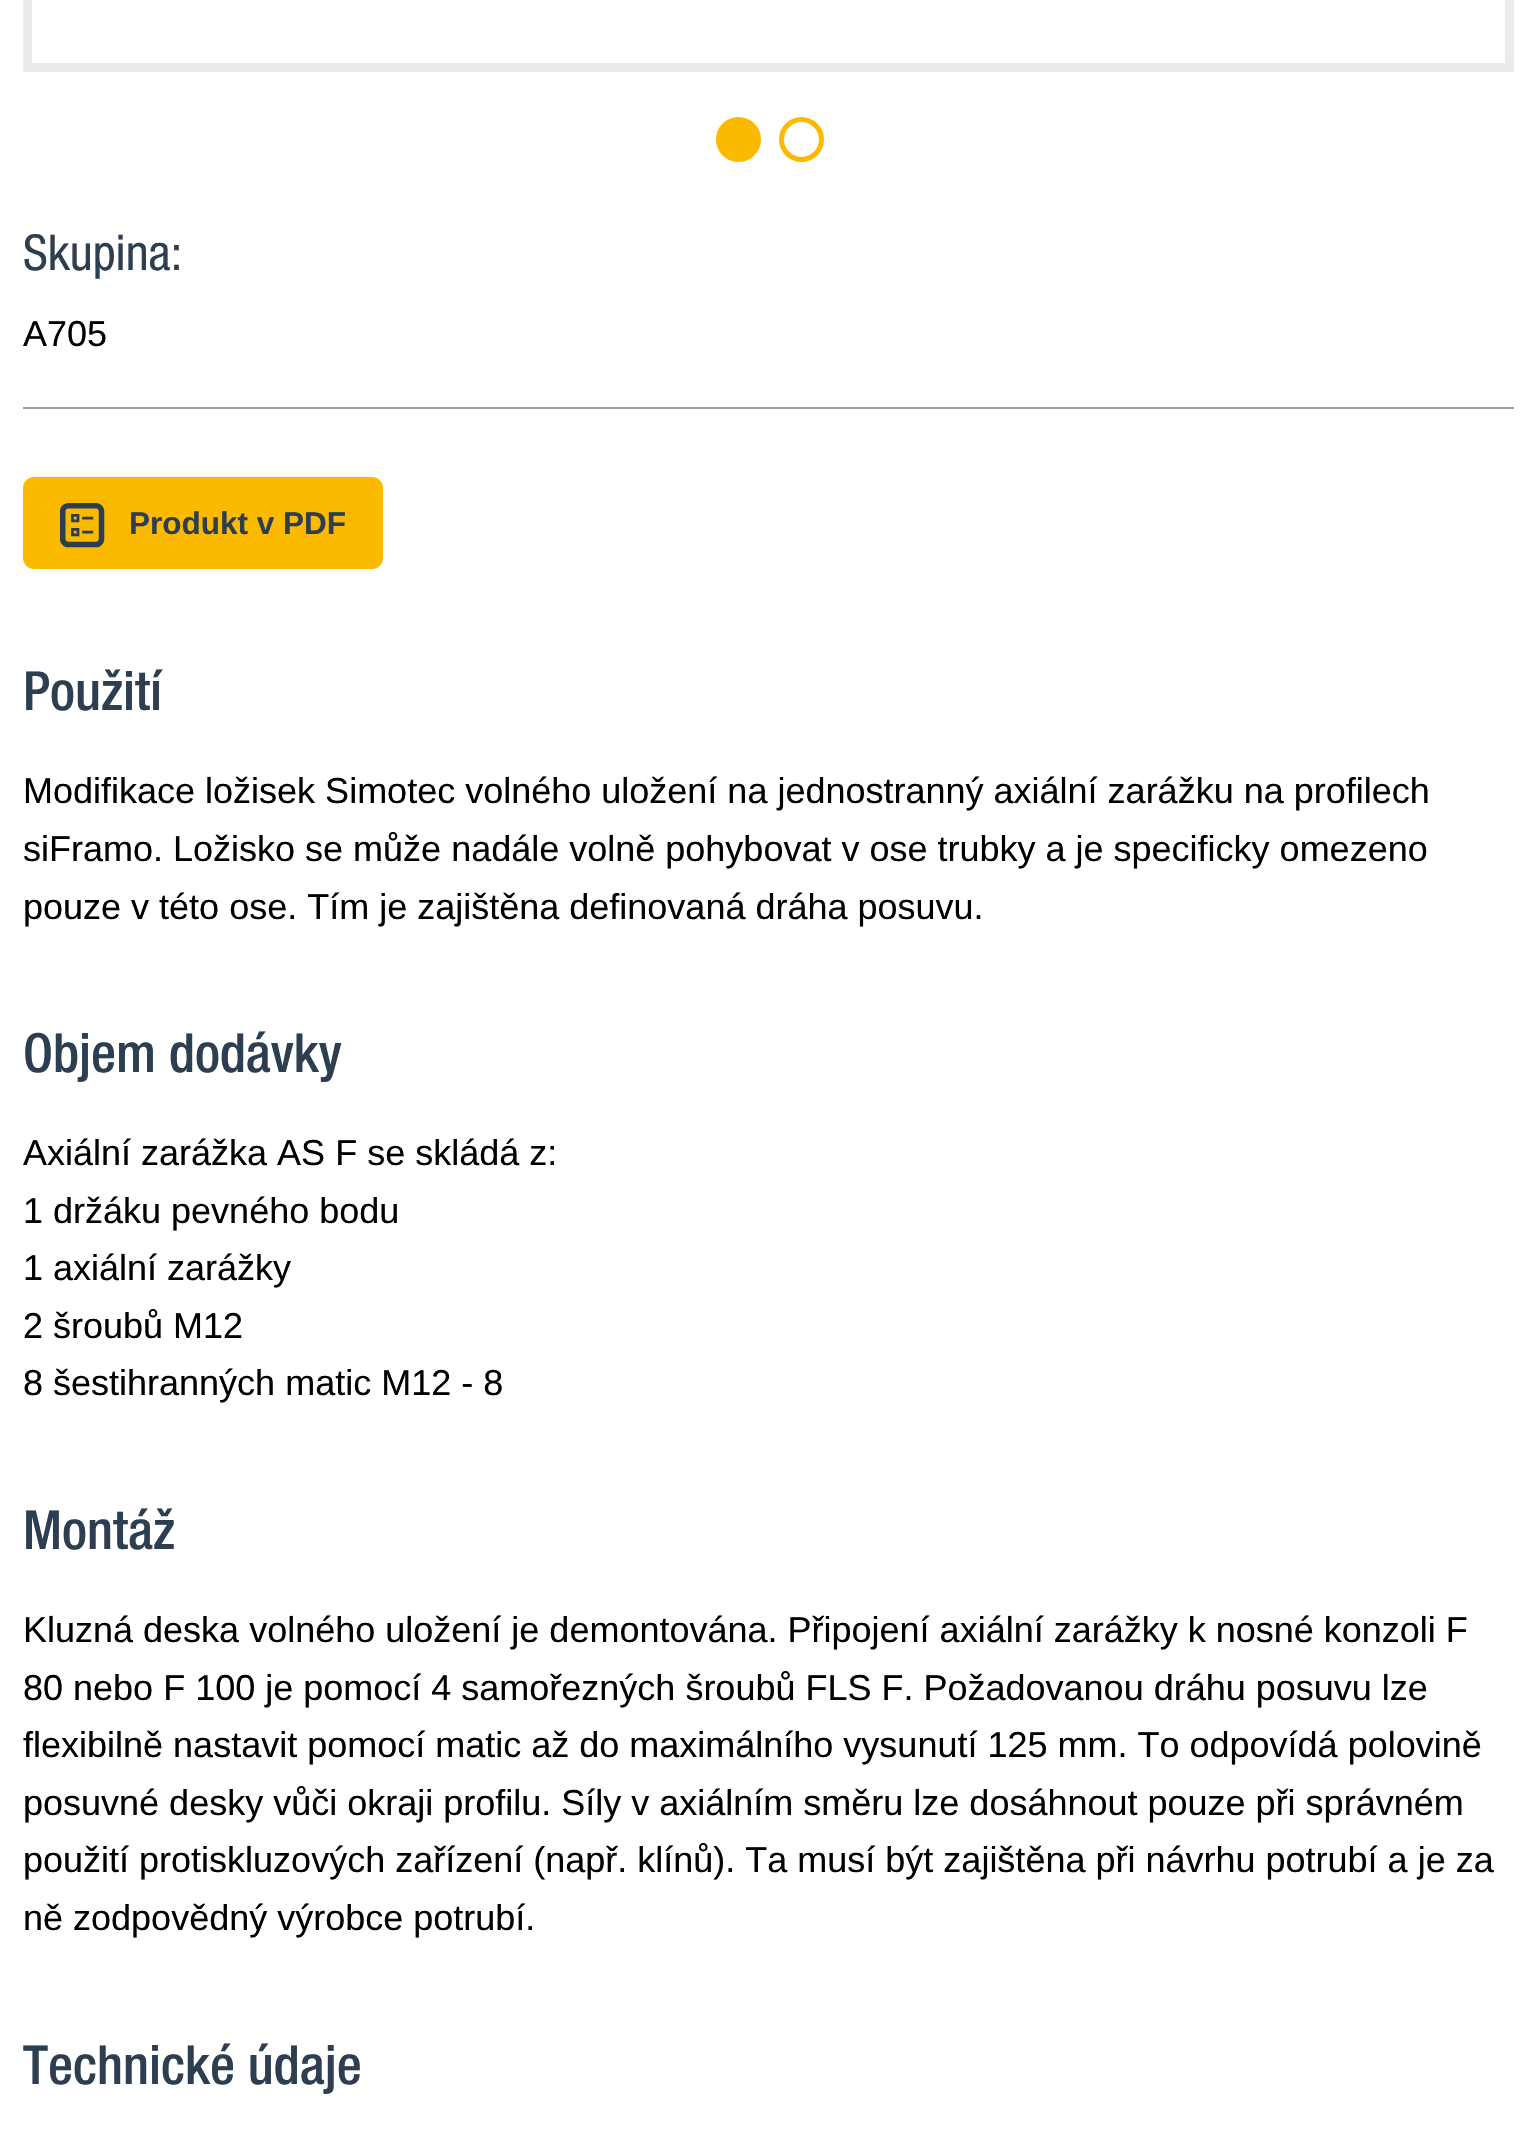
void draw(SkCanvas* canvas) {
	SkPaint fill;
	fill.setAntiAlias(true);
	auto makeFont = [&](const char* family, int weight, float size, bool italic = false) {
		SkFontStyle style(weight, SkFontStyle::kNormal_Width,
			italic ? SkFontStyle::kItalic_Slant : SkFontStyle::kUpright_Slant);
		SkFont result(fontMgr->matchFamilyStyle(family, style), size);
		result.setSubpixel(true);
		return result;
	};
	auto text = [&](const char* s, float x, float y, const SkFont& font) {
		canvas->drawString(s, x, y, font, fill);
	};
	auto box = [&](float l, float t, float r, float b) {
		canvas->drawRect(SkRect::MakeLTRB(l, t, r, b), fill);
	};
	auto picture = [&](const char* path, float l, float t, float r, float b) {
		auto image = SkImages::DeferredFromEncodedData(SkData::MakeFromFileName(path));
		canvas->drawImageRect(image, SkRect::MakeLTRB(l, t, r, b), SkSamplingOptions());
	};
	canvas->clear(0xFFFFFFFF);
	fill.setStyle(SkPaint::kStroke_Style);
	fill.setStrokeWidth(9);
	fill.setColor(0xFFEBEBEB);
	canvas->drawRect(SkRect::MakeLTRB(27.5f, -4.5f, 1509.5f, 67.5f), fill);
	fill.setStyle(SkPaint::kFill_Style);
	fill.setColor(0xFFFBB900);
	canvas->drawCircle(738.5f, 139.5f, 20, fill);
	fill.setStyle(SkPaint::kStroke_Style);
	fill.setStrokeWidth(5);
	canvas->drawCircle(738.5f, 139.5f, 20, fill);
	canvas->drawCircle(801.5f, 139.5f, 20, fill);
	fill.setStyle(SkPaint::kFill_Style);
	fill.setColor(0xFF959FAA);
	box(23, 407, 1514, 409);
	fill.setColor(0xFFFBB900);
	canvas->drawRoundRect(SkRect::MakeLTRB(24, 478, 382, 568), 10, 10, fill);
	fill.setStyle(SkPaint::kStroke_Style);
	fill.setStrokeWidth(2);
	canvas->drawRoundRect(SkRect::MakeLTRB(24, 478, 382, 568), 10, 10, fill);
	picture("image0.png", 60, 503, 105, 548);
	auto font1 = makeFont("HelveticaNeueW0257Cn", 400, 49.5f);
	fill.setStyle(SkPaint::kFill_Style);
	fill.setColor(0xFF2C3E50);
	text("Skupina:", 23, 270, font1);
	auto font2 = makeFont("Liberation Sans", 400, 36);
	fill.setColor(0xFF000000);
	text("A705", 23, 346, font2);
	auto font3 = makeFont("Liberation Sans", 700, 31.5f);
	fill.setColor(0xFF2C3E50);
	text("Produkt v PDF", 129, 534, font3);
	auto font4 = makeFont("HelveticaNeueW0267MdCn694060", 400, 54);
	text("Použití", 23, 710, font4);
	fill.setColor(0xFF000000);
	text("Modifikace ložisek Simotec volného uložení na jednostranný axiální zarážku na profilech", 23, 803, font2);
	text("siFramo. Ložisko se může nadále volně pohybovat v ose trubky a je specificky omezeno", 23, 861, font2);
	text("pouze v této ose. Tím je zajištěna definovaná dráha posuvu.", 23, 919, font2);
	fill.setColor(0xFF2C3E50);
	text("Objem dodávky", 23, 1072, font4);
	fill.setColor(0xFF000000);
	text("Axiální zarážka AS F se skládá z:", 23, 1165, font2);
	text("1 držáku pevného bodu", 23, 1223, font2);
	text("1 axiální zarážky", 23, 1280, font2);
	text("2 šroubů M12", 23, 1338, font2);
	text("8 šestihranných matic M12 - 8", 23, 1395, font2);
	fill.setColor(0xFF2C3E50);
	text("Montáž", 23, 1549, font4);
	fill.setColor(0xFF000000);
	text("Kluzná deska volného uložení je demontována. Připojení axiální zarážky k nosné konzoli F", 23, 1642, font2);
	text("80 nebo F 100 je pomocí 4 samořezných šroubů FLS F. Požadovanou dráhu posuvu lze", 23, 1700, font2);
	text("flexibilně nastavit pomocí matic až do maximálního vysunutí 125 mm. To odpovídá polovině", 23, 1757, font2);
	text("posuvné desky vůči okraji profilu. Síly v axiálním směru lze dosáhnout pouze při správném", 23, 1815, font2);
	text("použití protiskluzových zařízení (např. klínů). Ta musí být zajištěna při návrhu potrubí a je za", 23, 1872, font2);
	text("ně zodpovědný výrobce potrubí.", 23, 1930, font2);
	fill.setColor(0xFF2C3E50);
	text("Technické údaje", 23, 2084, font4);
}
